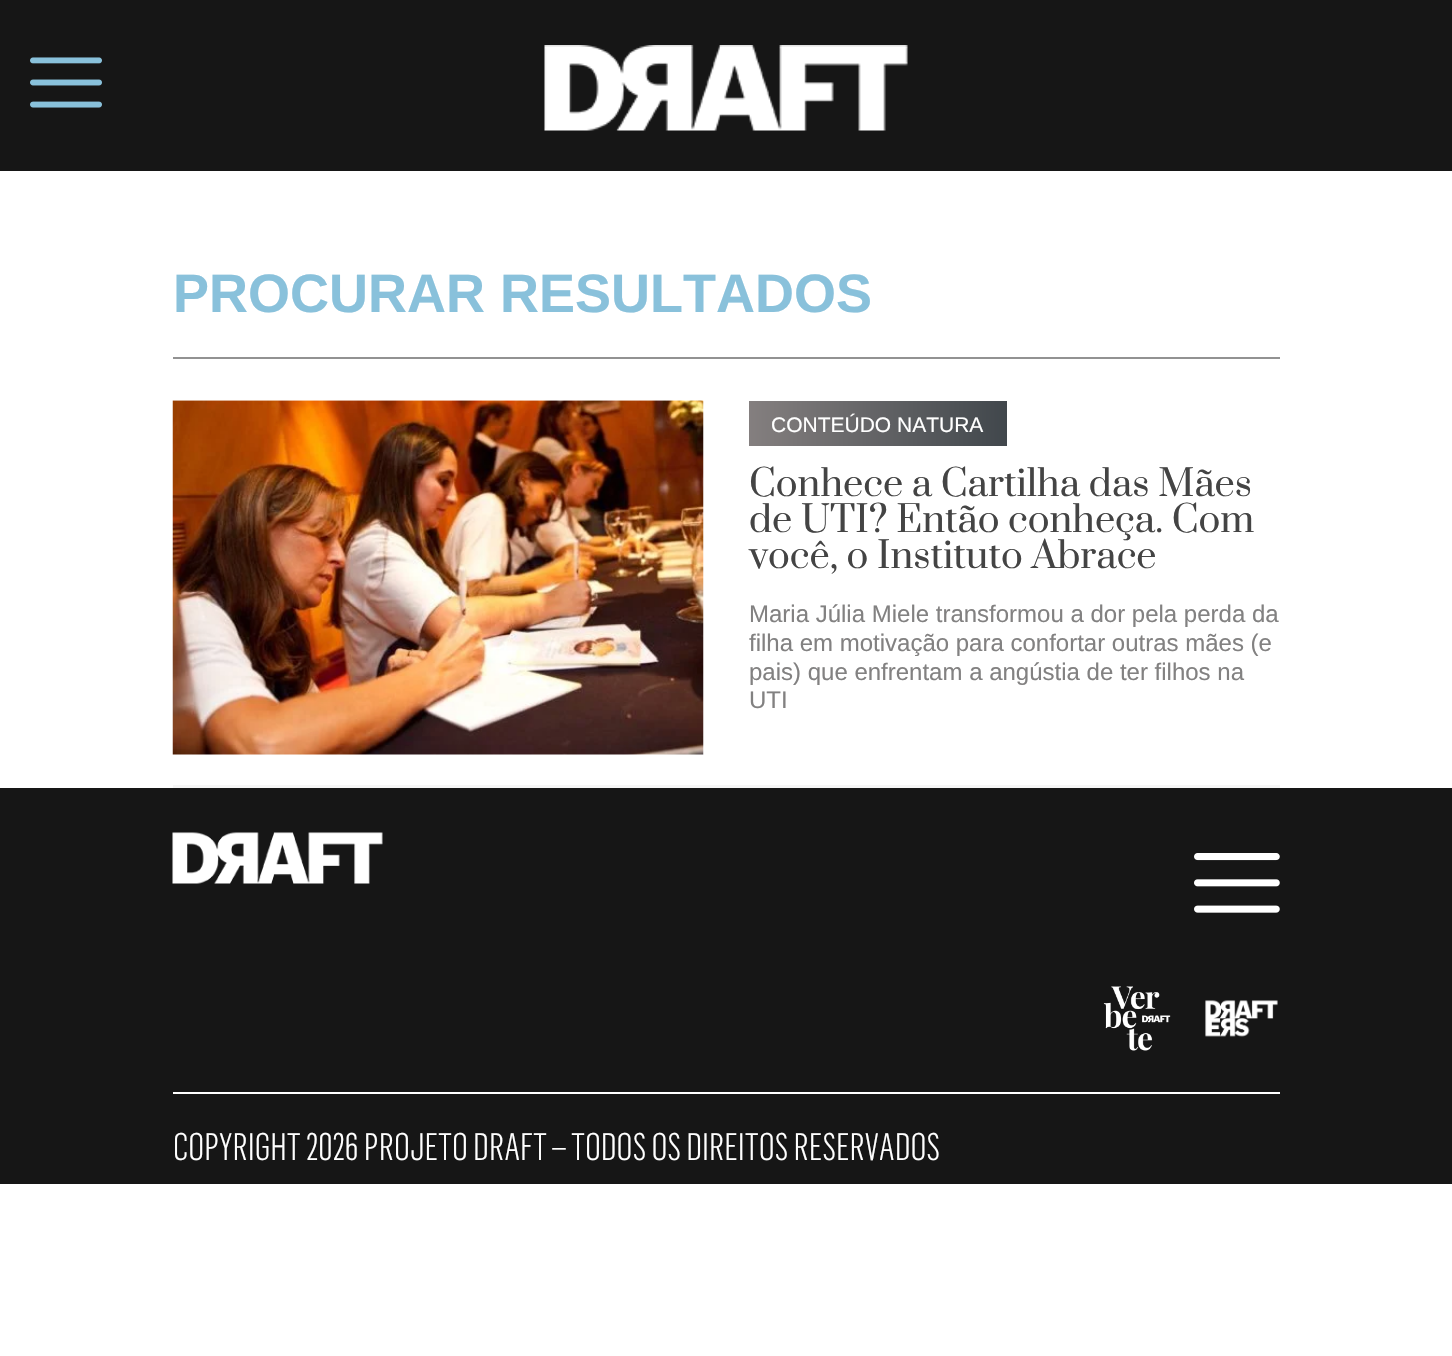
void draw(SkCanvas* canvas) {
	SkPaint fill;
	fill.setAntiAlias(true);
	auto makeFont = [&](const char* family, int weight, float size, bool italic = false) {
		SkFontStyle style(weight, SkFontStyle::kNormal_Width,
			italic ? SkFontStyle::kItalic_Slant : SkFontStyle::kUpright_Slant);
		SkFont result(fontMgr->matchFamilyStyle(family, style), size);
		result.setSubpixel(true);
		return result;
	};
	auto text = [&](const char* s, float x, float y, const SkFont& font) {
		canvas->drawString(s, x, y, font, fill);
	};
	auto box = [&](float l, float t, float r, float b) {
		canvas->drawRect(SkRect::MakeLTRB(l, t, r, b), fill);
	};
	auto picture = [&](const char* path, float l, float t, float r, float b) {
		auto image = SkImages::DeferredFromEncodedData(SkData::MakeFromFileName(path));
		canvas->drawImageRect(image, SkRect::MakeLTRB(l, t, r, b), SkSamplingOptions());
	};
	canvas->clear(0xFFFFFFFF);
	fill.setColor(0xFF161616);
	box(0, 0, 1452, 171);
	picture("image0.png", 30, 57, 102, 108);
	picture("image1.png", 544, 45, 908, 131);
	fill.setColor(0xFF929292);
	box(173, 357, 1280, 359);
	fill.setColor(0xFFF6F6F6);
	box(173, 785, 1280, 788);
	picture("image2.png", 172, 400, 704, 755);
	{
		const SkColor colors[] = {0xFF847F7F, 0xFF41474C};
		const float stops[] = {0, 1};
		const SkPoint ends[] = {{749, 423}, {1007, 423}};
		fill.setShader(SkGradientShader::MakeLinear(ends, colors, stops, 2, SkTileMode::kClamp));
		fill.setAlpha(255);
	}
	box(749, 401, 1007, 446);
	fill.setShader(nullptr);
	fill.setColor(0xFF161616);
	box(0, 788, 1452, 1184);
	picture("image3.png", 172, 832, 383, 884);
	picture("image4.png", 1194, 853, 1280, 913);
	picture("image5.png", 1103, 986, 1171, 1051);
	picture("image6.png", 1205, 1000, 1278, 1037);
	fill.setColor(0xFFFFFFFF);
	box(173, 1092, 1280, 1094);
	auto font1 = makeFont("Liberation Sans", 700, 54);
	fill.setColor(0xFF89C1DB);
	text("PROCURAR RESULTADOS", 173, 312, font1);
	auto font2 = makeFont("Liberation Sans", 400, 21);
	fill.setColor(0xFFFFFFFF);
	text("CONTEÚDO NATURA", 771, 432, font2);
	auto font3 = makeFont("Prata", 400, 36);
	fill.setColor(0xFF444444);
	text("Conhece a Cartilha das Mães", 749, 496, font3);
	text("de UTI? Então conheça. Com", 749, 532, font3);
	text("você, o Instituto Abrace", 749, 568, font3);
	auto font4 = makeFont("Liberation Sans", 400, 24);
	fill.setColor(0xFF828181);
	text("Maria Júlia Miele transformou a dor pela perda da", 749, 622, font4);
	text("filha em motivação para confortar outras mães (e", 749, 651, font4);
	text("pais) que enfrentam a angústia de ter filhos na", 749, 680, font4);
	text("UTI", 749, 708, font4);
	auto font5 = makeFont("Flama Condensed", 300, 37.5f);
	fill.setColor(0xFFFFFFFF);
	text("COPYRIGHT 2026 PROJETO DRAFT – TODOS OS DIREITOS RESERVADOS", 173, 1160, font5);
}
